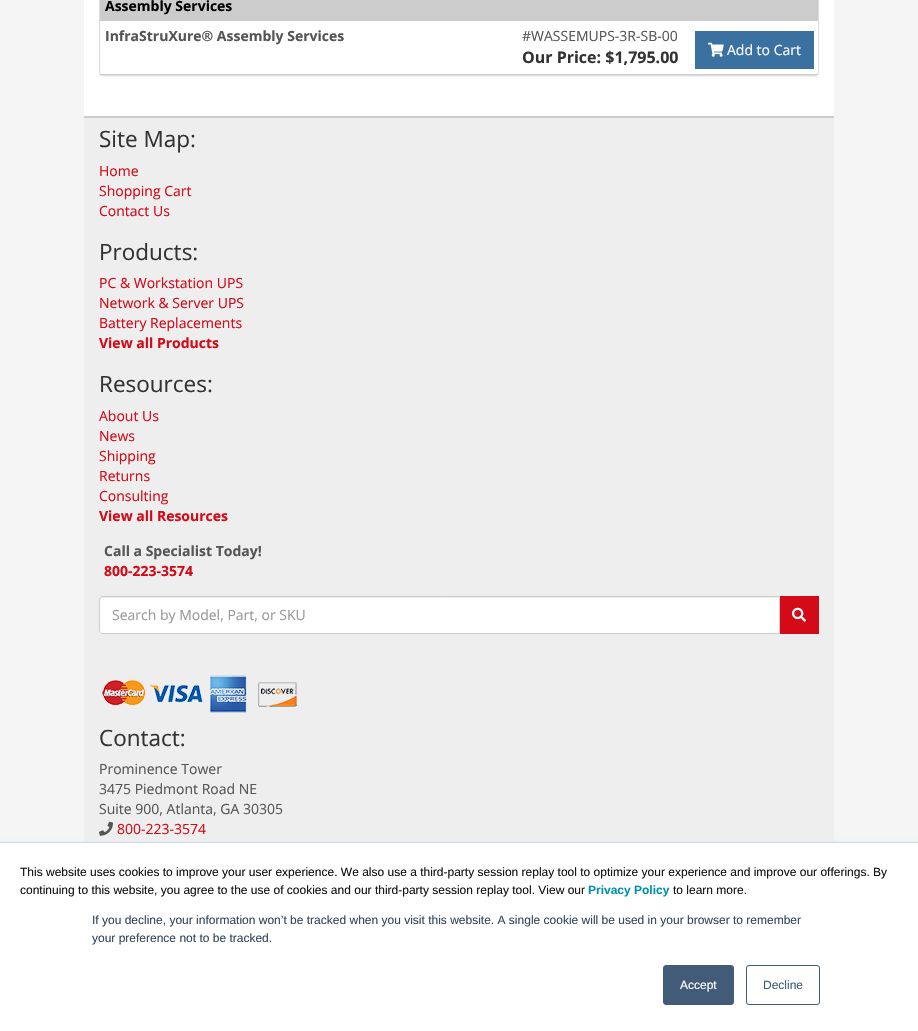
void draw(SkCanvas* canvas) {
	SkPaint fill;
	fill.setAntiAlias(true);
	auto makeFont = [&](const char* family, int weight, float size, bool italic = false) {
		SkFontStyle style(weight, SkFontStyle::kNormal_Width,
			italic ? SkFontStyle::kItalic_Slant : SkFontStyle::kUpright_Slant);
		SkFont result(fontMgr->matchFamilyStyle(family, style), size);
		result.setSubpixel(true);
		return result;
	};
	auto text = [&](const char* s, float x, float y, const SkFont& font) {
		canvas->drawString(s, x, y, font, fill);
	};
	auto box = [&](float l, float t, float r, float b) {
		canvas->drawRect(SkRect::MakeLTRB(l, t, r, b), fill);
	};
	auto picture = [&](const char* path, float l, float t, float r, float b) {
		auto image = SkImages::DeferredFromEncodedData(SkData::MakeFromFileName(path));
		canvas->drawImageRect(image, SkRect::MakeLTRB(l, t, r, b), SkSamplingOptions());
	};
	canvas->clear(0xFFF5F5F5);
	fill.setColor(0xFFFFFFFF);
	box(84, 0, 834, 116);
	fill.setColor(0x0D000000);
	fill.setMaskFilter(SkMaskFilter::MakeBlur(kNormal_SkBlurStyle, 0.5f));
	canvas->drawRoundRect(SkRect::MakeLTRB(99, -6, 819, 77), 4, 4, fill);
	fill.setMaskFilter(nullptr);
	fill.setColor(0xFFFFFFFF);
	canvas->drawRoundRect(SkRect::MakeLTRB(99.5f, -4.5f, 818.5f, 75.5f), 3.5f, 3.5f, fill);
	fill.setStyle(SkPaint::kStroke_Style);
	fill.setStrokeWidth(1);
	fill.setColor(0xFFDDDDDD);
	canvas->drawRoundRect(SkRect::MakeLTRB(99.5f, -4.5f, 818.5f, 75.5f), 3.5f, 3.5f, fill);
	fill.setStyle(SkPaint::kFill_Style);
	fill.setColor(0xFFCCCCCC);
	box(100, 0, 818, 21);
	box(100, 74, 818, 75);
	fill.setColor(0xFF3A71A0);
	box(695, 31, 814, 69);
	picture("image0.png", 708, 42, 724, 57);
	fill.setColor(0xFFEEEEEE);
	box(84, 118, 834, 842);
	fill.setColor(0xFFCCCCCC);
	box(84, 116, 834, 118);
	fill.setColor(0xFFFFFFFF);
	canvas->drawPath(SkPathBuilder().moveTo(103, 596).lineTo(780, 596).lineTo(780, 634).lineTo(103, 634).cubicTo(101, 634, 99, 632, 99, 630).lineTo(99, 600).cubicTo(99, 598, 101, 596, 103, 596).close().detach(), fill);
	fill.setColor(0xFFECECEC);
	canvas->drawPath(SkPathBuilder().moveTo(103, 598).lineTo(779, 598).lineTo(779, 597).lineTo(103, 597).cubicTo(101, 597, 100, 598, 100, 600).lineTo(100, 601).cubicTo(100, 599, 101, 598, 103, 598).close().detach(), fill);
	fill.setStyle(SkPaint::kStroke_Style);
	fill.setColor(0xFFCCCCCC);
	canvas->drawPath(SkPathBuilder().moveTo(103, 596.5f).lineTo(779.5f, 596.5f).lineTo(779.5f, 633.5f).lineTo(103, 633.5f).cubicTo(101, 633.5f, 99.5f, 632, 99.5f, 630).lineTo(99.5f, 600).cubicTo(99.5f, 598, 101, 596.5f, 103, 596.5f).close().detach(), fill);
	fill.setStyle(SkPaint::kFill_Style);
	fill.setColor(0xFFD50A18);
	box(780, 596, 819, 634);
	picture("image1.png", 792, 607, 806, 622);
	picture("image2.png", 102, 675, 297, 713);
	picture("image3.png", 99, 821, 113, 836);
	fill.setColor(0xFFEAF0F6);
	fill.setMaskFilter(SkMaskFilter::MakeBlur(kNormal_SkBlurStyle, 1.5f));
	canvas->drawRect(SkRect::MakeLTRB(0, 841, 918, 1030), fill);
	fill.setMaskFilter(nullptr);
	fill.setColor(0xFFFFFFFF);
	box(0, 843, 918, 1031);
	fill.setColor(0xFFCBD6E2);
	box(0, 842, 918, 843);
	fill.setColor(0xFF425B76);
	canvas->drawRoundRect(SkRect::MakeLTRB(663.5f, 965.5f, 733.5f, 1004.5f), 2.5f, 2.5f, fill);
	fill.setStyle(SkPaint::kStroke_Style);
	canvas->drawRoundRect(SkRect::MakeLTRB(663.5f, 965.5f, 733.5f, 1004.5f), 2.5f, 2.5f, fill);
	canvas->drawRoundRect(SkRect::MakeLTRB(746.5f, 965.5f, 819.5f, 1004.5f), 2.5f, 2.5f, fill);
	auto font1 = makeFont("Open Sans", 700, 14);
	fill.setStyle(SkPaint::kFill_Style);
	fill.setColor(0xFF000000);
	text("Assembly Services", 105, 11, font1);
	fill.setColor(0xFF555555);
	text("InfraStruXure® Assembly Services", 105, 41, font1);
	auto font2 = makeFont("Open Sans", 400, 14);
	text("#WASSEMUPS-3R-SB-00", 522, 41, font2);
	auto font3 = makeFont("Open Sans", 700, 16);
	fill.setColor(0xFF333333);
	text("Our Price: $1,795.00", 522, 63, font3);
	fill.setColor(0xFFFFFFFF);
	text("Add to Cart", 727, 55, font2);
	auto font4 = makeFont("Open Sans", 400, 22.5f);
	fill.setColor(0xFF333333);
	text("Site Map:", 99, 147, font4);
	fill.setColor(0xFFD50A18);
	text("Home", 99, 176, font2);
	text("Shopping Cart", 99, 196, font2);
	text("Contact Us", 99, 216, font2);
	fill.setColor(0xFF333333);
	text("Products:", 99, 260, font4);
	fill.setColor(0xFFD50A18);
	text("PC & Workstation UPS", 99, 288, font2);
	text("Network & Server UPS", 99, 308, font2);
	text("Battery Replacements", 99, 328, font2);
	text("View all Products", 99, 348, font1);
	fill.setColor(0xFF333333);
	text("Resources:", 99, 392, font4);
	fill.setColor(0xFFD50A18);
	text("About Us", 99, 421, font2);
	text("News", 99, 441, font2);
	text("Shipping", 99, 461, font2);
	text("Returns", 99, 481, font2);
	text("Consulting", 99, 501, font2);
	text("View all Resources", 99, 521, font1);
	fill.setColor(0xFF555555);
	text("Call a Specialist Today!", 104, 556, font1);
	fill.setColor(0xFFD50A18);
	text("800-223-3574", 104, 576, font1);
	fill.setColor(0xFF999999);
	text("Search by Model, Part, or SKU", 112, 620, font2);
	fill.setColor(0xFF333333);
	text("Contact:", 99, 746, font4);
	fill.setColor(0xFF555555);
	text("Prominence Tower", 99, 774, font2);
	text("3475 Piedmont Road NE", 99, 794, font2);
	text("Suite 900, Atlanta, GA 30305", 99, 814, font2);
	fill.setColor(0xFFD50A18);
	text("800-223-3574", 117, 834, font2);
	auto font5 = makeFont("Liberation Sans", 400, 12);
	fill.setColor(0xFF121212);
	text("This website uses cookies to improve your user experience. We also use a third-party session replay tool to optimize your experience and improve our offerings. By", 20, 876, font5);
	text("continuing to this website, you agree to the use of cookies and our third-party session replay tool. View our", 20, 894, font5);
	auto font6 = makeFont("Liberation Sans", 700, 12);
	fill.setColor(0xFF0091AE);
	text("Privacy Policy", 588, 894, font6);
	fill.setColor(0xFF121212);
	text("to learn more.", 673, 894, font5);
	fill.setColor(0xFF33475B);
	text("If you decline, your information won’t be tracked when you visit this website. A single cookie will be used in your browser to remember", 92, 924, font5);
	text("your preference not to be tracked.", 92, 942, font5);
	fill.setColor(0xFFFFFFFF);
	text("Accept", 680, 989, font5);
	fill.setColor(0xFF425B76);
	text("Decline", 763, 989, font5);
}
